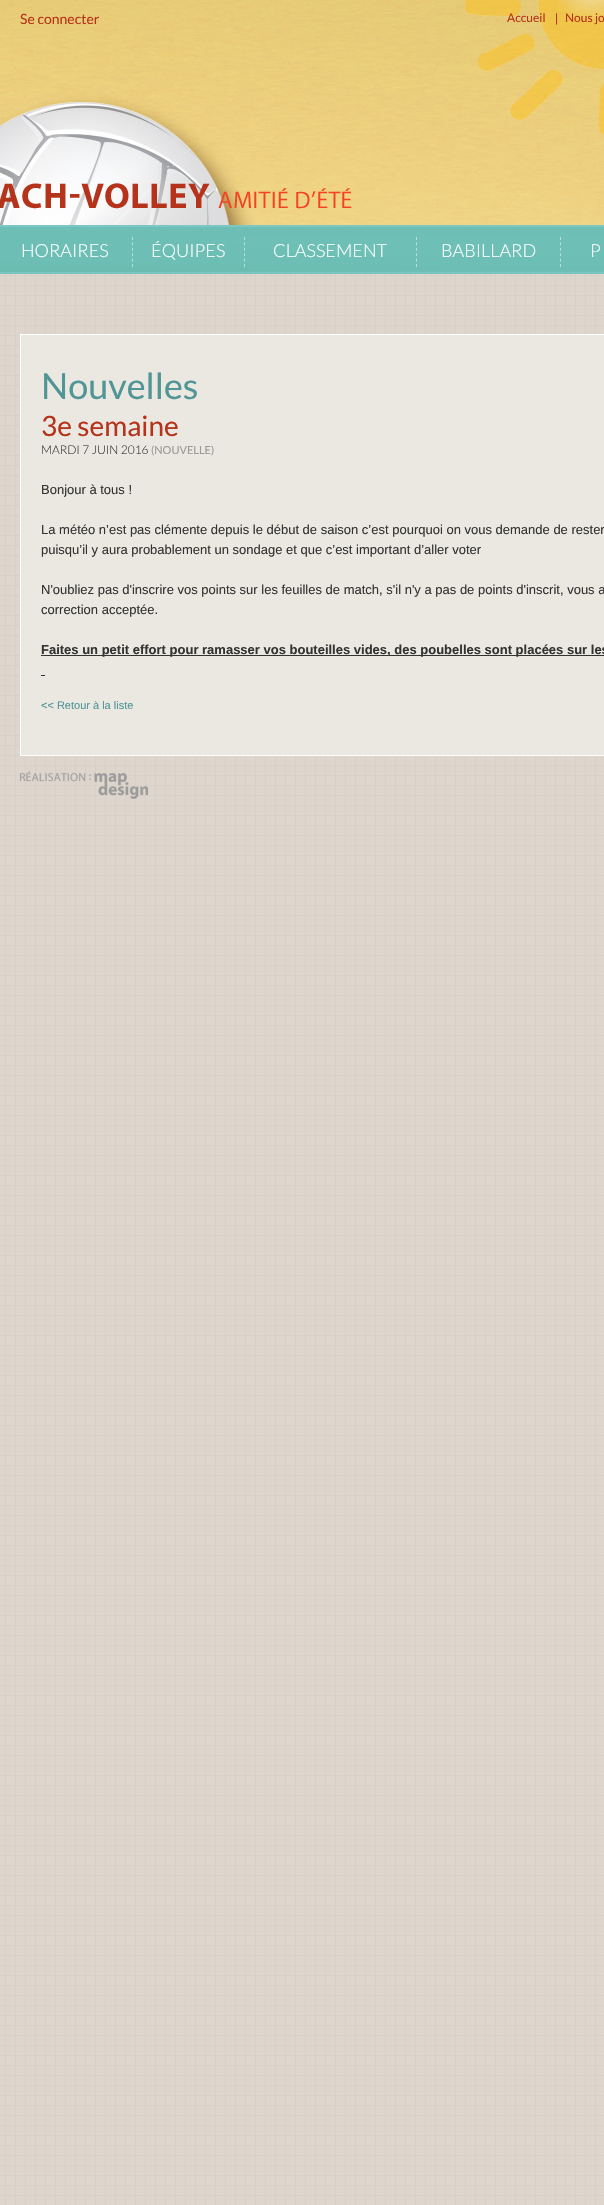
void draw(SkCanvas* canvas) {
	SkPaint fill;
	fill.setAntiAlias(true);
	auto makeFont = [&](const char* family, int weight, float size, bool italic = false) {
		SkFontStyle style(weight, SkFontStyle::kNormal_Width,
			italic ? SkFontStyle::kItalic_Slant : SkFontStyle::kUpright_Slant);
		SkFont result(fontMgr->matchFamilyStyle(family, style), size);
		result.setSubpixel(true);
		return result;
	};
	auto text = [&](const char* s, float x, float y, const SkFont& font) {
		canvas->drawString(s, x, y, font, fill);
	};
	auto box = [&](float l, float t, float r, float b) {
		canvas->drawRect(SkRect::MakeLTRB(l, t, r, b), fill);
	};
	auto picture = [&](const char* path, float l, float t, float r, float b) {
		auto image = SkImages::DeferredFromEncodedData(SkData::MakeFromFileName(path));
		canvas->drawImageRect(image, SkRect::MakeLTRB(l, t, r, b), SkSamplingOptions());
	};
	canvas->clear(0xFFFFFFFF);
	picture("image0.png", 0, 271, 604, 2205);
	picture("image1.png", 0, 0, 604, 274);
	fill.setStyle(SkPaint::kStroke_Style);
	fill.setStrokeWidth(1);
	fill.setColor(0xFFB6DFDA);
	fill.setPathEffect(SkDashPathEffect::Make({{3, 2.4f}}, 0));
	canvas->drawPath(SkPathBuilder().moveTo(132.5f, 237).lineTo(132.5f, 267).detach(), fill);
	fill.setPathEffect(nullptr);
	fill.setPathEffect(SkDashPathEffect::Make({{3, 2.4f}}, 0));
	canvas->drawPath(SkPathBuilder().moveTo(244.5f, 237).lineTo(244.5f, 267).detach(), fill);
	fill.setPathEffect(nullptr);
	fill.setPathEffect(SkDashPathEffect::Make({{3, 2.4f}}, 0));
	canvas->drawPath(SkPathBuilder().moveTo(416.5f, 237).lineTo(416.5f, 267).detach(), fill);
	fill.setPathEffect(nullptr);
	fill.setPathEffect(SkDashPathEffect::Make({{3, 2.4f}}, 0));
	canvas->drawPath(SkPathBuilder().moveTo(560.5f, 237).lineTo(560.5f, 267).detach(), fill);
	fill.setPathEffect(nullptr);
	fill.setStyle(SkPaint::kFill_Style);
	fill.setColor(0xFFEAE8E1);
	canvas->drawRect(SkRect::MakeLTRB(20.5f, 334.5f, 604.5f, 755.5f), fill);
	fill.setStyle(SkPaint::kStroke_Style);
	fill.setColor(0xFFFFFFFF);
	canvas->drawRect(SkRect::MakeLTRB(20.5f, 334.5f, 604.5f, 755.5f), fill);
	fill.setStyle(SkPaint::kFill_Style);
	fill.setColor(0xFF333333);
	box(41, 655, 604, 656);
	box(41, 675, 45, 676);
	picture("image2.png", 20, 771, 148, 799);
	auto font1 = makeFont("Lato", 400, 14);
	fill.setColor(0xFFB5331A);
	text("Se connecter", 20, 24, font1);
	auto font2 = makeFont("Lato", 400, 12);
	text("Accueil", 507, 22, font2);
	auto font3 = makeFont("Liberation Sans", 400, 12);
	text("|", 555, 22, font3);
	text("Nous jo", 565, 22, font2);
	auto font4 = makeFont("Lato", 300, 18);
	fill.setColor(0xFFFFFFFF);
	text("HORAIRES", 21, 257, font4);
	text("ÉQUIPES", 151, 257, font4);
	text("CLASSEMENT", 273, 257, font4);
	text("BABILLARD", 441, 257, font4);
	text("P", 590, 257, font4);
	auto font5 = makeFont("Lato", 400, 36);
	fill.setColor(0xFF519596);
	text("Nouvelles", 41, 399, font5);
	auto font6 = makeFont("Lato", 400, 28);
	fill.setColor(0xFFB5331A);
	text("3e semaine", 41, 436, font6);
	auto font7 = makeFont("Lato", 300, 12);
	fill.setColor(0xFF333333);
	text("MARDI 7 JUIN 2016", 41, 454, font7);
	auto font8 = makeFont("Lato", 400, 11);
	fill.setColor(0xFF999999);
	text("(NOUVELLE)", 151, 454, font8);
	auto font9 = makeFont("Liberation Sans", 400, 13);
	fill.setColor(0xFF333333);
	text("Bonjour à tous !", 41, 494, font9);
	text("La météo n’est pas clémente depuis le début de saison c’est pourquoi on vous demande de rester", 41, 534, font9);
	text("puisqu’il y aura probablement un sondage et que c’est important d’aller voter", 41, 554, font9);
	text("N'oubliez pas d'inscrire vos points sur les feuilles de match, s'il n'y a pas de points d'inscrit, vous a", 41, 594, font9);
	text("correction acceptée.", 41, 614, font9);
	auto font10 = makeFont("Liberation Sans", 700, 13);
	text("Faites un petit effort pour ramasser vos bouteilles vides, des poubelles sont placées sur les", 41, 654, font10);
	auto font11 = makeFont("Liberation Sans", 400, 11);
	fill.setColor(0xFF519596);
	text("<< Retour à la liste", 41, 709, font11);
}
